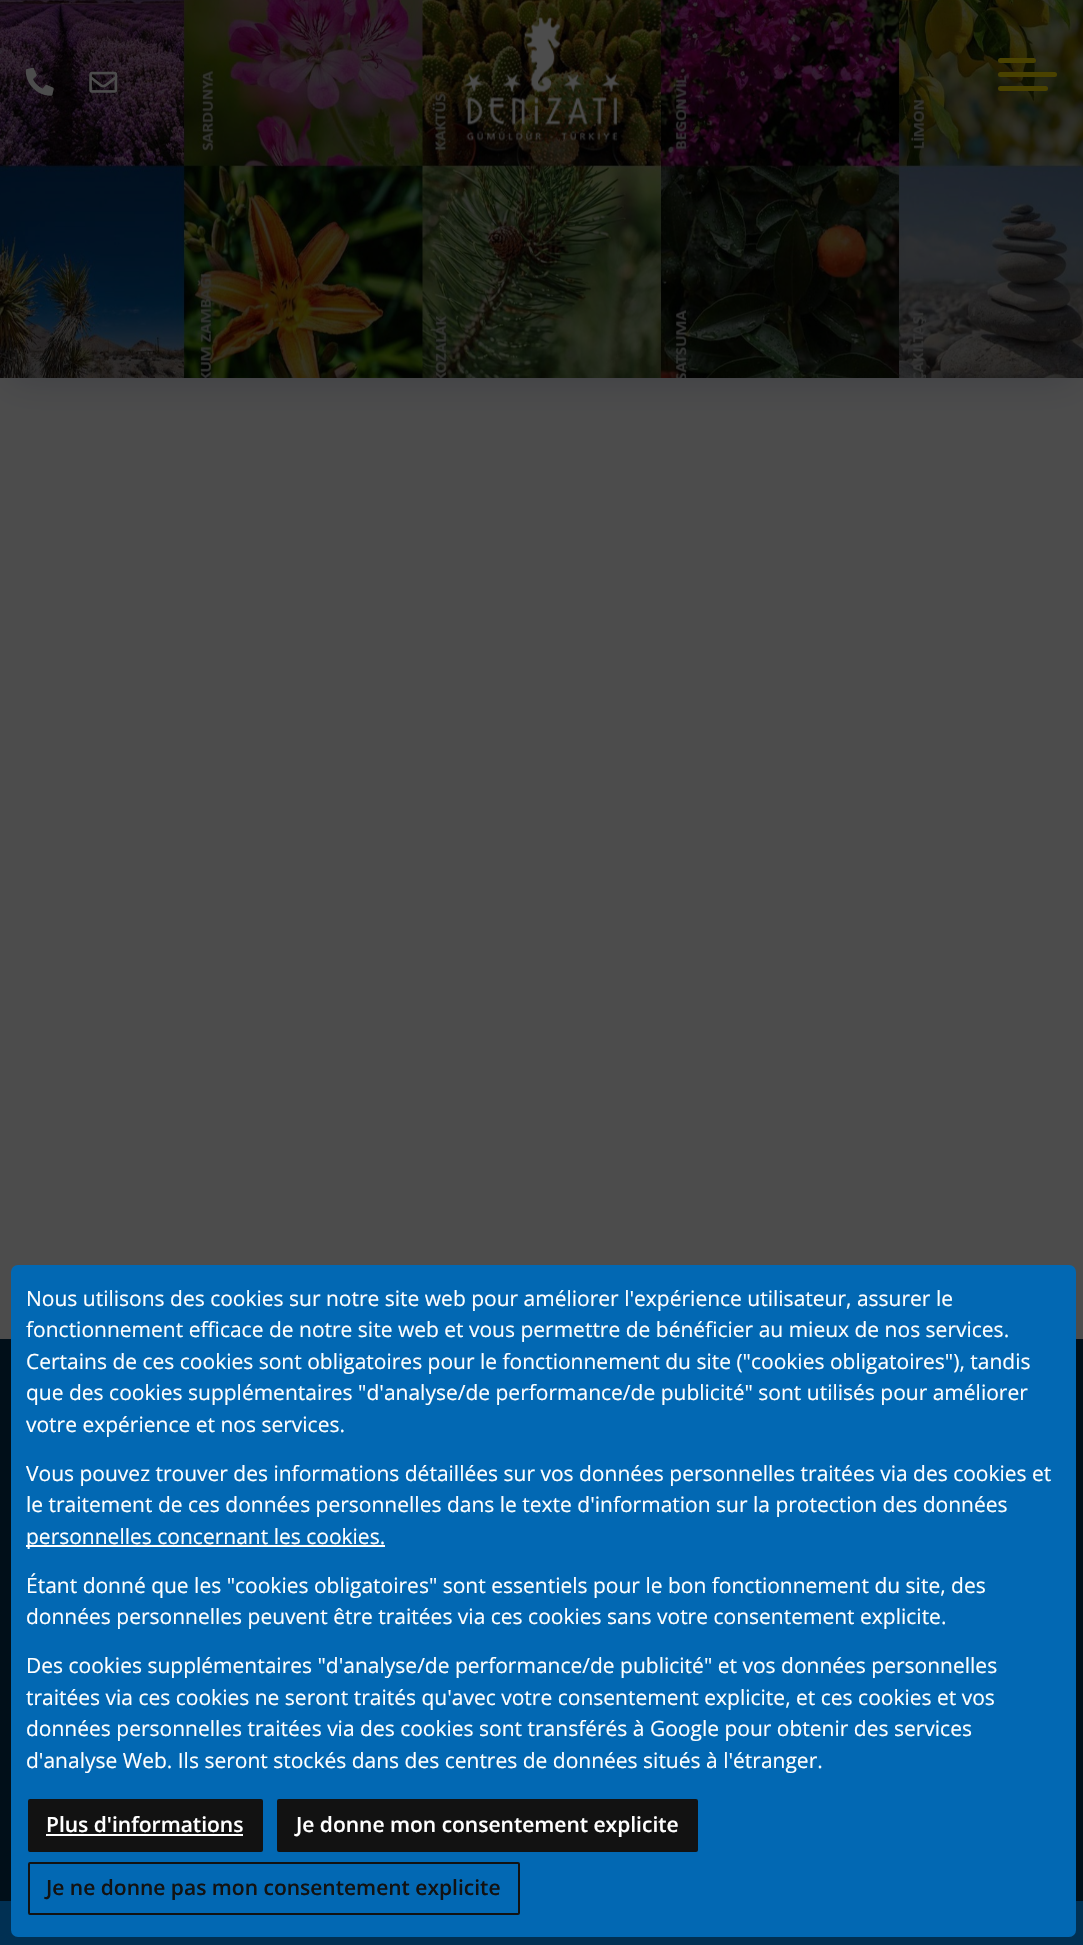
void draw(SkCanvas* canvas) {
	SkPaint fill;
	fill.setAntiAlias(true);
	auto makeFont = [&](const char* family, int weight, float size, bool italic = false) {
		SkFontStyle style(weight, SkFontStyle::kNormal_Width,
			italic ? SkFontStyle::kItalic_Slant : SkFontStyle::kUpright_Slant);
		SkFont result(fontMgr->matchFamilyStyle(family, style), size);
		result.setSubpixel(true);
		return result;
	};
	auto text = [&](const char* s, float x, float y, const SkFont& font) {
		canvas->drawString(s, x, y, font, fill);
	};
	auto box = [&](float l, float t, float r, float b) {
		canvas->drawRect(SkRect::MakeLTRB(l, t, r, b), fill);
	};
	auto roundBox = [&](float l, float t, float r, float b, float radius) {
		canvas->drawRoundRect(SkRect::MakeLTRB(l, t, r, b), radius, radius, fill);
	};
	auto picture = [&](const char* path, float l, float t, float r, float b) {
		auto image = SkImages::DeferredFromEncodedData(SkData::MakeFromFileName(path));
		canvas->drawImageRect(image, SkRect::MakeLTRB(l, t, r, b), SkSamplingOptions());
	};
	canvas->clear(0xFFFFFFFF);
	fill.setColor(0xFFCDD1E1);
	fill.setMaskFilter(SkMaskFilter::MakeBlur(kNormal_SkBlurStyle, 18.5f));
	canvas->drawRect(SkRect::MakeLTRB(9, -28, 1075, 378), fill);
	fill.setMaskFilter(nullptr);
	picture("image0.png", 0, 0, 1083, 378);
	picture("image1.png", 25, 67, 54, 96);
	picture("image2.png", 89, 71, 118, 93);
	picture("image3.png", 464, 17, 621, 141);
	fill.setColor(0xFFF6DB00);
	roundBox(998, 58, 1036, 63, 2.5f);
	roundBox(998, 72, 1057, 77, 2.5f);
	roundBox(998, 86, 1048, 91, 2.5f);
	fill.setColor(0xFF013053);
	box(0, 1339, 1083, 1945);
	fill.setColor(0xB3000000);
	box(0, 0, 1083, 1901);
	fill.setColor(0xFF0268B3);
	roundBox(11, 1265, 1076, 1937, 7);
	fill.setColor(0xFFFFFFFF);
	box(26, 1545, 385, 1547);
	fill.setColor(0xFF121212);
	canvas->drawRoundRect(SkRect::MakeLTRB(29, 1800, 262, 1851), 1, 1, fill);
	fill.setStyle(SkPaint::kStroke_Style);
	fill.setStrokeWidth(2);
	canvas->drawRoundRect(SkRect::MakeLTRB(29, 1800, 262, 1851), 1, 1, fill);
	fill.setStyle(SkPaint::kFill_Style);
	fill.setColor(0xFFFFFFFF);
	box(46, 1834, 243, 1836);
	fill.setColor(0xFF121212);
	canvas->drawRoundRect(SkRect::MakeLTRB(278, 1800, 697, 1851), 1, 1, fill);
	fill.setStyle(SkPaint::kStroke_Style);
	canvas->drawRoundRect(SkRect::MakeLTRB(278, 1800, 697, 1851), 1, 1, fill);
	canvas->drawRoundRect(SkRect::MakeLTRB(29, 1863, 519, 1914), 1, 1, fill);
	auto font1 = makeFont("Open Sans", 400, 21);
	fill.setStyle(SkPaint::kFill_Style);
	fill.setColor(0xFFFFFFFF);
	text("Nous utilisons des cookies sur notre site web pour améliorer l'expérience utilisateur, assurer le", 26, 1306, font1);
	text("fonctionnement efficace de notre site web et vous permettre de bénéficier au mieux de nos services.", 26, 1337, font1);
	text("Certains de ces cookies sont obligatoires pour le fonctionnement du site (\"cookies obligatoires\"), tandis", 26, 1369, font1);
	text("que des cookies supplémentaires \"d'analyse/de performance/de publicité\" sont utilisés pour améliorer", 26, 1400, font1);
	text("votre expérience et nos services.", 26, 1432, font1);
	text("Vous pouvez trouver des informations détaillées sur vos données personnelles traitées via des cookies et", 26, 1481, font1);
	text("le traitement de ces données personnelles dans le texte d'information sur la protection des données", 26, 1512, font1);
	text("personnelles concernant les cookies.", 26, 1544, font1);
	text("Étant donné que les \"cookies obligatoires\" sont essentiels pour le bon fonctionnement du site, des", 26, 1593, font1);
	text("données personnelles peuvent être traitées via ces cookies sans votre consentement explicite.", 26, 1624, font1);
	text("Des cookies supplémentaires \"d'analyse/de performance/de publicité\" et vos données personnelles", 26, 1673, font1);
	text("traitées via ces cookies ne seront traités qu'avec votre consentement explicite, et ces cookies et vos", 26, 1705, font1);
	text("données personnelles traitées via des cookies sont transférés à Google pour obtenir des services", 26, 1736, font1);
	text("d'analyse Web. Ils seront stockés dans des centres de données situés à l'étranger.", 26, 1768, font1);
	auto font2 = makeFont("Open Sans", 600, 21);
	text("Plus d'informations", 46, 1832, font2);
	text("Je donne mon consentement explicite", 296, 1832, font2);
	fill.setColor(0xFF121212);
	text("Je ne donne pas mon consentement explicite", 46, 1895, font2);
}
